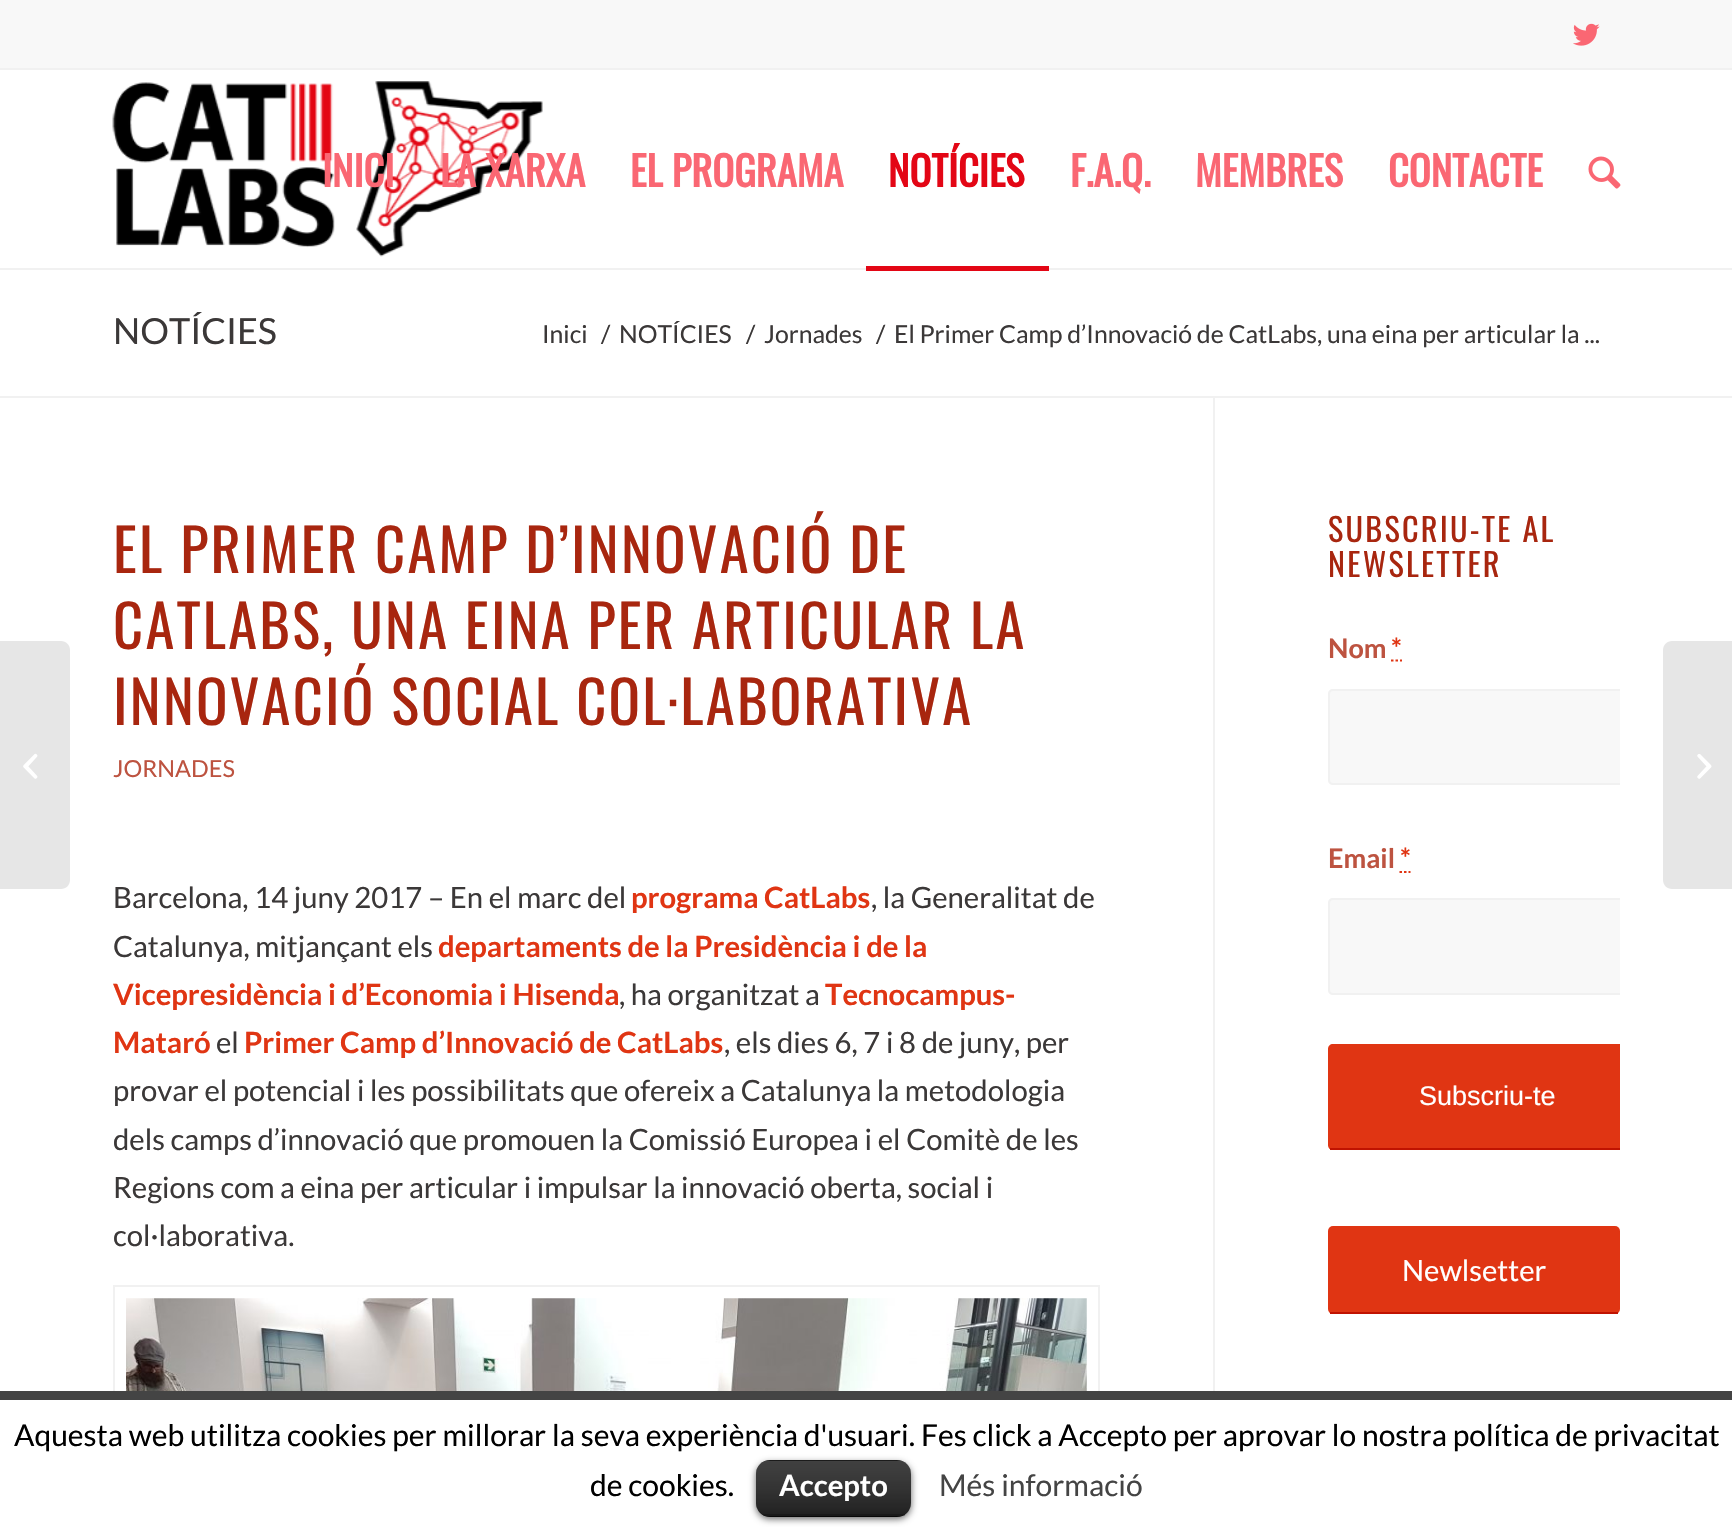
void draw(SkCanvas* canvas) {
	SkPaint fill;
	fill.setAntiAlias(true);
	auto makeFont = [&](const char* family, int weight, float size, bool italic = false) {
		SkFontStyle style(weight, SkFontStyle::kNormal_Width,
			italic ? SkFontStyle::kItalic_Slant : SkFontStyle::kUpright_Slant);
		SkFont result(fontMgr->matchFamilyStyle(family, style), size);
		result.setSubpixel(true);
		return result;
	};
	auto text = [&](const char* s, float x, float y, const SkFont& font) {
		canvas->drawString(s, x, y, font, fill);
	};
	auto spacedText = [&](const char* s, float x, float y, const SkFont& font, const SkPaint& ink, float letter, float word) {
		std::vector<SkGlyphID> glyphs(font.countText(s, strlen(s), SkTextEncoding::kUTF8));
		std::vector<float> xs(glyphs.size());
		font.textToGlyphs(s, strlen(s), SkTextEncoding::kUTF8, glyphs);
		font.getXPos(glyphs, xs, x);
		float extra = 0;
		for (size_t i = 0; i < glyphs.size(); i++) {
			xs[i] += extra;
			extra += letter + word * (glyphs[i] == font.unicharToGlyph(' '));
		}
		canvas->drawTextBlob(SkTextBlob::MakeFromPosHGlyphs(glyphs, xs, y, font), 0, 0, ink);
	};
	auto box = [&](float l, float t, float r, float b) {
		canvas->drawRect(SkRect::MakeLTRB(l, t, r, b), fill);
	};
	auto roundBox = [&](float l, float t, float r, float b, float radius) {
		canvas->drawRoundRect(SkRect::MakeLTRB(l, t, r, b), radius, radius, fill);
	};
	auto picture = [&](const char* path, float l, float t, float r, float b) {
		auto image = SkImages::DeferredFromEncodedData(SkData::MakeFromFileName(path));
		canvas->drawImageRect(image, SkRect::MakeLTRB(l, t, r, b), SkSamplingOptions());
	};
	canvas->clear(0xFFFFFFFF);
	fill.setColor(0xFFF8F8F8);
	box(0, 0, 1732, 68);
	fill.setColor(0xFFF1F1F1);
	box(0, 68, 1732, 70);
	picture("image0.png", 1573, 23, 1600, 46);
	box(0, 268, 1732, 270);
	picture("image1.png", 112, 81, 543, 257);
	fill.setColor(0xFFE30615);
	box(866, 266, 1049, 271);
	picture("image2.png", 1588, 156, 1621, 189);
	fill.setColor(0xFFE6E6E6);
	canvas->drawPath(SkPathBuilder().moveTo(0, 641).lineTo(61, 641).cubicTo(66, 641, 70, 645, 70, 650).lineTo(70, 880).cubicTo(70, 885, 66, 889, 61, 889).lineTo(0, 889).close().detach(), fill);
	picture("image3.png", 23, 753, 38, 779);
	fill.setColor(0xFFF1F1F1);
	box(0, 396, 1732, 398);
	box(1213, 398, 1215, 1391);
	fill.setStyle(SkPaint::kStroke_Style);
	fill.setStrokeWidth(2);
	canvas->drawRect(SkRect::MakeLTRB(114, 1286, 1099, 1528), fill);
	picture("image4.png", 126, 1298, 1087, 1391);
	fill.setStrokeWidth(2.2f);
	fill.setColor(0xFFE03513);
	canvas->drawPath(SkPathBuilder().moveTo(1391, 660.5f).lineTo(1393.5f, 660.5f).moveTo(1395.5f, 660.5f).lineTo(1398, 660.5f).moveTo(1400, 660.5f).lineTo(1402, 660.5f).detach(), fill);
	fill.setStyle(SkPaint::kFill_Style);
	fill.setColor(0xFFF8F8F8);
	canvas->drawPath(SkPathBuilder().moveTo(1333, 689).lineTo(1620, 689).lineTo(1620, 785).lineTo(1333, 785).cubicTo(1330, 785, 1328, 783, 1328, 780).lineTo(1328, 694).cubicTo(1328, 691, 1330, 689, 1333, 689).close().detach(), fill);
	canvas->save();
	canvas->clipRect(SkRect::MakeLTRB(1215, 398, 1620, 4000));
	fill.setStyle(SkPaint::kStroke_Style);
	fill.setStrokeWidth(2);
	fill.setColor(0xFFF1F1F1);
	canvas->drawRoundRect(SkRect::MakeLTRB(1329, 690, 1646, 784), 4, 4, fill);
	canvas->restore();
	fill.setStrokeWidth(2.2f);
	fill.setColor(0xFFE03513);
	canvas->drawPath(SkPathBuilder().moveTo(1399.5f, 872).lineTo(1402, 872).moveTo(1404, 872).lineTo(1406.5f, 872).moveTo(1408.5f, 872).lineTo(1410.5f, 872).detach(), fill);
	fill.setStyle(SkPaint::kFill_Style);
	fill.setColor(0xFFF8F8F8);
	canvas->drawPath(SkPathBuilder().moveTo(1333, 898).lineTo(1620, 898).lineTo(1620, 995).lineTo(1333, 995).cubicTo(1330, 995, 1328, 993, 1328, 990).lineTo(1328, 903).cubicTo(1328, 900, 1330, 898, 1333, 898).close().detach(), fill);
	canvas->save();
	canvas->clipRect(SkRect::MakeLTRB(1215, 398, 1620, 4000));
	fill.setStyle(SkPaint::kStroke_Style);
	fill.setStrokeWidth(2);
	fill.setColor(0xFFF1F1F1);
	canvas->drawRoundRect(SkRect::MakeLTRB(1329, 899, 1646, 994), 4, 4, fill);
	canvas->restore();
	fill.setStyle(SkPaint::kFill_Style);
	fill.setColor(0xFFE03513);
	canvas->drawPath(SkPathBuilder().moveTo(1333, 1044).lineTo(1620, 1044).lineTo(1620, 1150).lineTo(1333, 1150).cubicTo(1330, 1150, 1328, 1148, 1328, 1145).lineTo(1328, 1049).cubicTo(1328, 1046, 1330, 1044, 1333, 1044).close().detach(), fill);
	fill.setColor(0xFFC01301);
	box(1330, 1148, 1620, 1150);
	fill.setColor(0xFFE03513);
	roundBox(1328, 1226, 1620, 1314, 5);
	fill.setColor(0xFFC01301);
	box(1330, 1312, 1618, 1314);
	fill.setColor(0xFFE6E6E6);
	canvas->drawPath(SkPathBuilder().moveTo(1672, 641).lineTo(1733, 641).lineTo(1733, 889).lineTo(1672, 889).cubicTo(1667, 889, 1663, 885, 1663, 880).lineTo(1663, 650).cubicTo(1663, 645, 1667, 641, 1672, 641).close().detach(), fill);
	picture("image5.png", 1697, 754, 1712, 779);
	fill.setColor(0xFFFFFFFF);
	box(113, 1400, 1100, 1527);
	fill.setColor(0xFF444444);
	box(0, 1391, 1732, 1400);
	fill.setColor(0x99000000);
	fill.setMaskFilter(SkMaskFilter::MakeBlur(kNormal_SkBlurStyle, 3.5f));
	canvas->drawRoundRect(SkRect::MakeLTRB(756, 1463, 911, 1519), 14, 14, fill);
	fill.setMaskFilter(nullptr);
	fill.setColor(0xFF000000);
	roundBox(756, 1460, 911, 1517, 14);
	picture("image6.png", 756, 1460, 911, 1517);
	fill.setColor(0x40000000);
	box(763, 1514, 905, 1516);
	auto font1 = makeFont("Oswald", 700, 40.5f);
	fill.setColor(0xFFFA6773);
	text("INICI", 322, 187, font1);
	text("LA XARXA", 440, 187, font1);
	text("EL PROGRAMA", 630, 187, font1);
	fill.setColor(0xFFE30615);
	text("NOTÍCIES", 888, 187, font1);
	fill.setColor(0xFFFA6773);
	text("F.A.Q.", 1070, 187, font1);
	text("MEMBRES", 1195, 187, font1);
	text("CONTACTE", 1388, 187, font1);
	auto font2 = makeFont("Lato", 400, 36);
	fill.setColor(0xFF3B3838);
	text("NOTÍCIES", 113, 344, font2);
	auto font3 = makeFont("Lato", 400, 24.75f);
	text("Inici", 542, 343, font3);
	text("/", 601, 343, font3);
	text("NOTÍCIES", 619, 343, font3);
	text("/", 746, 343, font3);
	text("Jornades", 764, 343, font3);
	text("/", 876, 343, font3);
	text("El Primer Camp d’Innovació de CatLabs, una eina per articular la ...", 894, 343, font3);
	auto font4 = makeFont("Oswald", 400, 58.5f);
	fill.setColor(0xFFA8260F);
	spacedText("EL PRIMER CAMP D’INNOVACIÓ DE", 113, 573, font4, fill, 2.25f, 0);
	spacedText("CATLABS, UNA EINA PER ARTICULAR LA", 113, 649, font4, fill, 2.25f, 0);
	spacedText("INNOVACIÓ SOCIAL COL·LABORATIVA", 113, 725, font4, fill, 2.25f, 0);
	auto font5 = makeFont("Lato", 400, 23.5f);
	fill.setColor(0xFFBD5340);
	text("JORNADES", 113, 777, font5);
	auto font6 = makeFont("Lato", 400, 29.25f);
	fill.setColor(0xFF3B3838);
	text("Barcelona, 14 juny 2017 – En el marc del", 113, 908, font6);
	auto font7 = makeFont("Lato", 700, 29.25f);
	fill.setColor(0xFFE03513);
	text("programa CatLabs", 631, 908, font7);
	fill.setColor(0xFF3B3838);
	text(", la Generalitat de", 871, 908, font6);
	text("Catalunya, mitjançant els", 113, 957, font6);
	fill.setColor(0xFFE03513);
	text("departaments de la Presidència i de la", 438, 957, font7);
	text("Vicepresidència i d’Economia i Hisenda", 113, 1005, font7);
	fill.setColor(0xFF3B3838);
	text(", ha organitzat a", 619, 1005, font6);
	fill.setColor(0xFFE03513);
	text("Tecnocampus-", 825, 1005, font7);
	text("Mataró", 113, 1053, font7);
	fill.setColor(0xFF3B3838);
	text("el", 216, 1053, font6);
	fill.setColor(0xFFE03513);
	text("Primer Camp d’Innovació de CatLabs", 244, 1053, font7);
	fill.setColor(0xFF3B3838);
	text(", els dies 6, 7 i 8 de juny, per", 724, 1053, font6);
	text("provar el potencial i les possibilitats que ofereix a Catalunya la metodologia", 113, 1101, font6);
	text("dels camps d’innovació que promouen la Comissió Europea i el Comitè de les", 113, 1150, font6);
	text("Regions com a eina per articular i impulsar la innovació oberta, social i", 113, 1198, font6);
	text("col·laborativa.", 113, 1246, font6);
	auto font8 = makeFont("Oswald", 400, 32.25f);
	fill.setColor(0xFFA8260F);
	spacedText("SUBSCRIU-TE AL", 1328, 542, font8, fill, 2.25f, 0);
	spacedText("NEWSLETTER", 1328, 577, font8, fill, 2.25f, 0);
	auto font9 = makeFont("Lato", 700, 27);
	fill.setColor(0xFFBD5340);
	text("Nom", 1328, 658, font9);
	fill.setColor(0xFFE03513);
	text("*", 1391, 658, font9);
	fill.setColor(0xFFBD5340);
	text("Email", 1328, 868, font9);
	fill.setColor(0xFFE03513);
	text("*", 1400, 868, font9);
	auto font10 = makeFont("Liberation Sans", 400, 27);
	fill.setColor(0xFFFFFFFF);
	text("Subscriu-te", 1419, 1105, font10);
	text("Newlsetter", 1402, 1281, font6);
	auto font11 = makeFont("Lato", 400, 30);
	fill.setColor(0xFF000000);
	text("Aquesta web utilitza cookies per millorar la seva experiència d'usuari. Fes click a Accepto per aprovar lo nostra política de privacitat", 14, 1446, font11);
	text("de cookies.", 590, 1496, font11);
	fill.setColor(0xFFFFFFFF);
	text("Accepto", 779, 1496, font7);
	fill.setColor(0xFF444444);
	text("Més informació", 939, 1496, font11);
}
